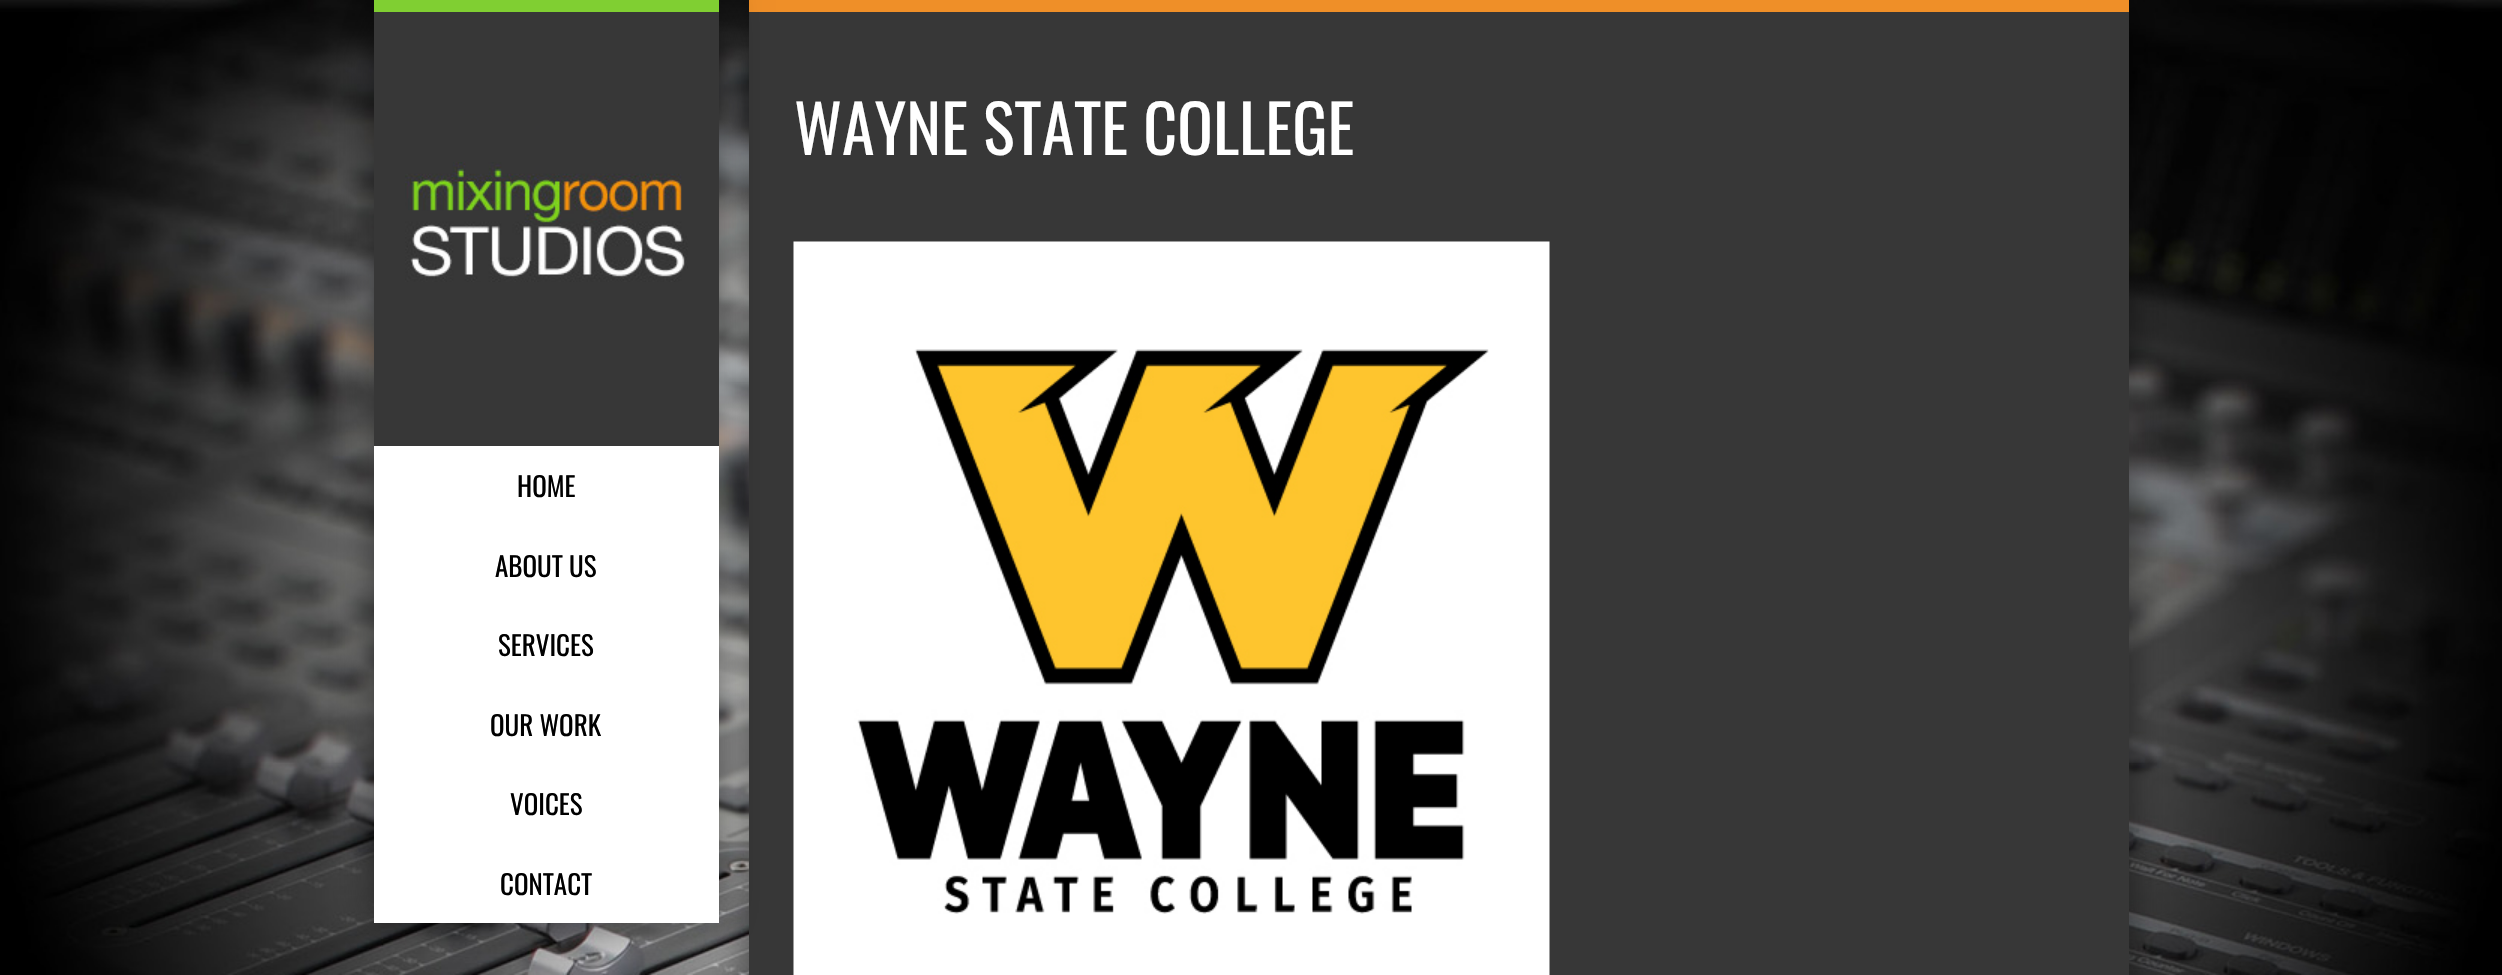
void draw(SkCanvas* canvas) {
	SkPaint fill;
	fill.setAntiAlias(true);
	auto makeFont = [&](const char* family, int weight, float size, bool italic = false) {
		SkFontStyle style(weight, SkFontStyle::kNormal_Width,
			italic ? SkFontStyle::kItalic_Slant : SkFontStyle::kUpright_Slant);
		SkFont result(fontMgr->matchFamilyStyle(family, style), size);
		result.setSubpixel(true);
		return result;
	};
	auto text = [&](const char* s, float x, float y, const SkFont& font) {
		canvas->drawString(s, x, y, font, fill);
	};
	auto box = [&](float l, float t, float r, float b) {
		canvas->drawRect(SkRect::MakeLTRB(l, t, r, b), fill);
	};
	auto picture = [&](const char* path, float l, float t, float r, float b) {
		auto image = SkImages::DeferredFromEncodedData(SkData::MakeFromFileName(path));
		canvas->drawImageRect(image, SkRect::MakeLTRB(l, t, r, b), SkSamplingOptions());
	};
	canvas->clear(0xFFFFFFFF);
	picture("image0.png", 0, 0, 2502, 975);
	fill.setColor(0x99000000);
	fill.setMaskFilter(SkMaskFilter::MakeBlur(kNormal_SkBlurStyle, 19));
	canvas->drawRect(SkRect::MakeLTRB(749, 0, 2129, 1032), fill);
	fill.setMaskFilter(nullptr);
	fill.setColor(0xFF373737);
	box(749, 12, 2129, 975);
	fill.setColor(0xFFEF8F28);
	box(749, 0, 2129, 12);
	picture("image1.png", 793, 241, 1550, 975);
	fill.setColor(0x99000000);
	fill.setMaskFilter(SkMaskFilter::MakeBlur(kNormal_SkBlurStyle, 19));
	canvas->drawRect(SkRect::MakeLTRB(374, 0, 719, 923), fill);
	fill.setMaskFilter(nullptr);
	fill.setColor(0xFF373737);
	box(374, 12, 719, 446);
	fill.setColor(0xFF80CF32);
	box(374, 0, 719, 12);
	picture("image2.png", 405, 162, 688, 282);
	fill.setColor(0xFFFFFFFF);
	box(374, 446, 719, 923);
	auto font1 = makeFont("Oswald", 400, 66);
	text("WAYNE STATE COLLEGE", 794, 155, font1);
	auto font2 = makeFont("Oswald", 400, 27);
	fill.setColor(0xFF000000);
	text("HOME", 517, 497, font2);
	text("ABOUT US", 495, 577, font2);
	text("SERVICES", 498, 656, font2);
	text("OUR WORK", 490, 736, font2);
	text("VOICES", 510, 815, font2);
	text("CONTACT", 500, 895, font2);
}
